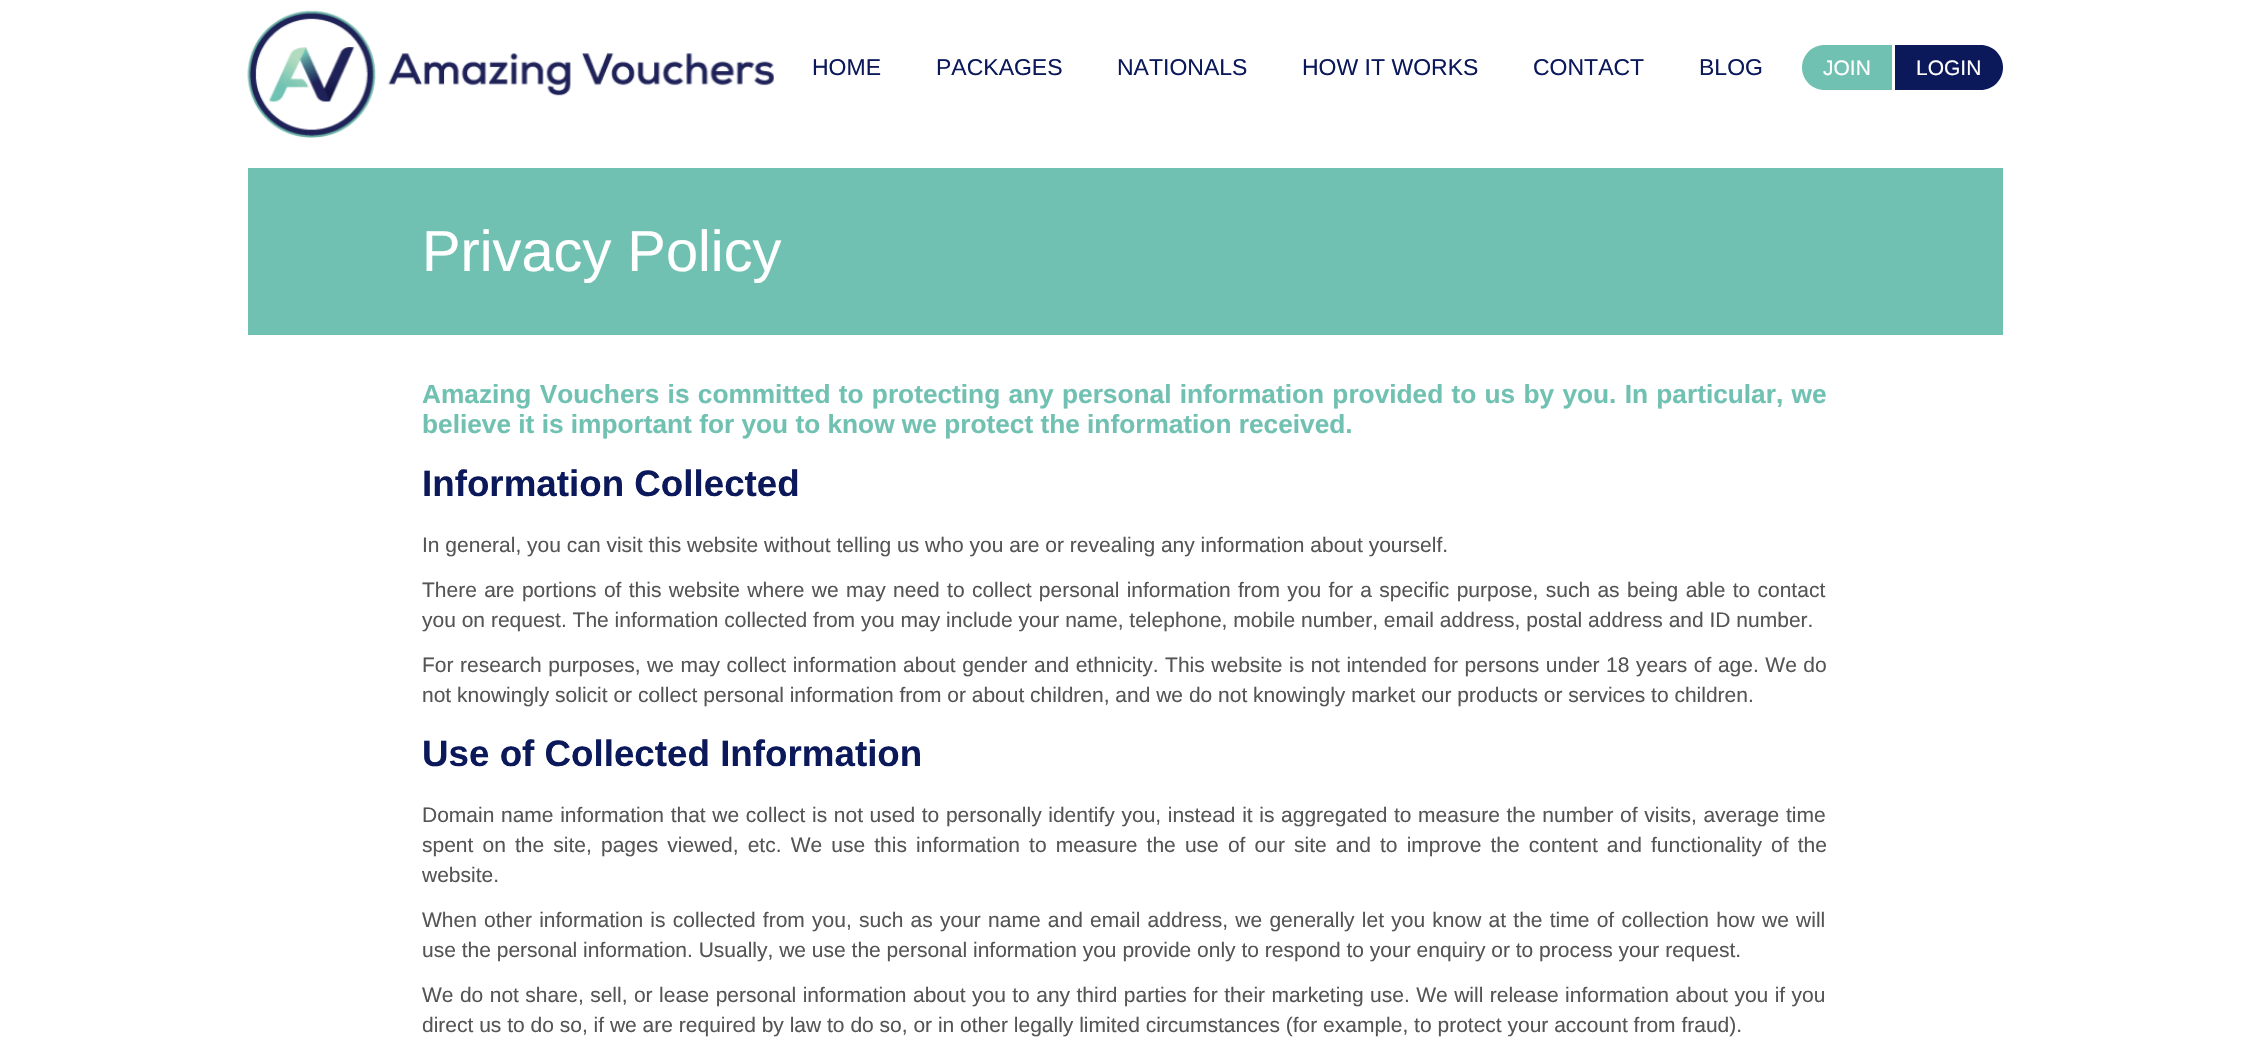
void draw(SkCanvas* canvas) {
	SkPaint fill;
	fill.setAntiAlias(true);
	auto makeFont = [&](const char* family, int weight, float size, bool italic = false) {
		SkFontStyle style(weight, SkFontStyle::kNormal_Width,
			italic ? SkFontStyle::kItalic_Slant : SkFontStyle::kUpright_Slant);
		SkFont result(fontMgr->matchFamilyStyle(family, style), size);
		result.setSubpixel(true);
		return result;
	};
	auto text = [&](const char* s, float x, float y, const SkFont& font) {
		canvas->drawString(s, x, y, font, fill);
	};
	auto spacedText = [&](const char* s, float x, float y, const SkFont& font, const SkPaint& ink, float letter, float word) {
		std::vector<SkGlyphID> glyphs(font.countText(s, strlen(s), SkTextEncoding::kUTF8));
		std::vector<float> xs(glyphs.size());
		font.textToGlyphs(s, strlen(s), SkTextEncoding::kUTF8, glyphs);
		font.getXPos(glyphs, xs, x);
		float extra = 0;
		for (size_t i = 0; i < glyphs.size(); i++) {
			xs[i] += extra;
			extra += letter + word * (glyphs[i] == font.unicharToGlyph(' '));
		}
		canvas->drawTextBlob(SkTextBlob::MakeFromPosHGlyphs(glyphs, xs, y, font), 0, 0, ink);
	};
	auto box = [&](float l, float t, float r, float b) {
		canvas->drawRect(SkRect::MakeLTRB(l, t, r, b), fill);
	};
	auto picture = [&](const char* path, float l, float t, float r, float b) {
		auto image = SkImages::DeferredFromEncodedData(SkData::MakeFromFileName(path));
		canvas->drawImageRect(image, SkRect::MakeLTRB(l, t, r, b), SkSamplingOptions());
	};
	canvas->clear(0xFFFFFFFF);
	picture("image0.png", 247, 10, 774, 138);
	fill.setColor(0xFF71C1B2);
	canvas->drawPath(SkPathBuilder().moveTo(1824.5f, 45).lineTo(1892, 45).lineTo(1892, 90).lineTo(1824.5f, 90).cubicTo(1812, 90, 1802, 80, 1802, 67.5f).cubicTo(1802, 55, 1812, 45, 1824.5f, 45).close().detach(), fill);
	fill.setColor(0xFF0B185A);
	canvas->drawPath(SkPathBuilder().moveTo(1895, 45).lineTo(1980.5f, 45).cubicTo(1993, 45, 2003, 55, 2003, 67.5f).cubicTo(2003, 80, 1993, 90, 1980.5f, 90).lineTo(1895, 90).close().detach(), fill);
	fill.setColor(0xFF71C1B2);
	box(248, 168, 2003, 335);
	auto font1 = makeFont("Liberation Sans", 400, 23);
	fill.setColor(0xFF0B185A);
	text("HOME", 812, 75, font1);
	text("PACKAGES", 936, 75, font1);
	text("NATIONALS", 1117, 75, font1);
	text("HOW IT WORKS", 1302, 75, font1);
	text("CONTACT", 1533, 75, font1);
	text("BLOG", 1699, 75, font1);
	auto font2 = makeFont("Liberation Sans", 400, 21);
	fill.setColor(0xFFFFFFFF);
	text("JOIN", 1823, 75, font2);
	text("LOGIN", 1916, 75, font2);
	auto font3 = makeFont("Liberation Sans", 400, 57.75f);
	text("Privacy Policy", 422, 271, font3);
	auto font4 = makeFont("Liberation Sans", 700, 26.25f);
	fill.setColor(0xFF71C1B2);
	spacedText("Amazing Vouchers is committed to protecting any personal information provided to us by you. In particular, we", 422, 403, font4, fill, 0, 1);
	text("believe it is important for you to know we protect the information received.", 422, 433, font4);
	auto font5 = makeFont("Liberation Sans", 700, 36.75f);
	fill.setColor(0xFF0B185A);
	text("Information Collected", 422, 496, font5);
	fill.setColor(0xFF555555);
	text("In general, you can visit this website without telling us who you are or revealing any information about yourself.", 422, 552, font2);
	spacedText("There are portions of this website where we may need to collect personal information from you for a specific purpose, such as being able to contact", 422, 597, font2, fill, 0, 1.5f);
	text("you on request. The information collected from you may include your name, telephone, mobile number, email address, postal address and ID number.", 422, 627, font2);
	spacedText("For research purposes, we may collect information about gender and ethnicity. This website is not intended for persons under 18 years of age. We do", 422, 672, font2, fill, 0, 0.7f);
	text("not knowingly solicit or collect personal information from or about children, and we do not knowingly market our products or services to children.", 422, 702, font2);
	fill.setColor(0xFF0B185A);
	text("Use of Collected Information", 422, 766, font5);
	fill.setColor(0xFF555555);
	spacedText("Domain name information that we collect is not used to personally identify you, instead it is aggregated to measure the number of visits, average time", 422, 822, font2, fill, 0, 0.8f);
	spacedText("spent on the site, pages viewed, etc. We use this information to measure the use of our site and to improve the content and functionality of the", 422, 852, font2, fill, 0, 3.3f);
	text("website.", 422, 882, font2);
	spacedText("When other information is collected from you, such as your name and email address, we generally let you know at the time of collection how we will", 422, 927, font2, fill, 0, 1.4f);
	text("use the personal information. Usually, we use the personal information you provide only to respond to your enquiry or to process your request.", 422, 957, font2);
	spacedText("We do not share, sell, or lease personal information about you to any third parties for their marketing use. We will release information about you if you", 422, 1002, font2, fill, 0, 0.6f);
	text("direct us to do so, if we are required by law to do so, or in other legally limited circumstances (for example, to protect your account from fraud).", 422, 1032, font2);
}
